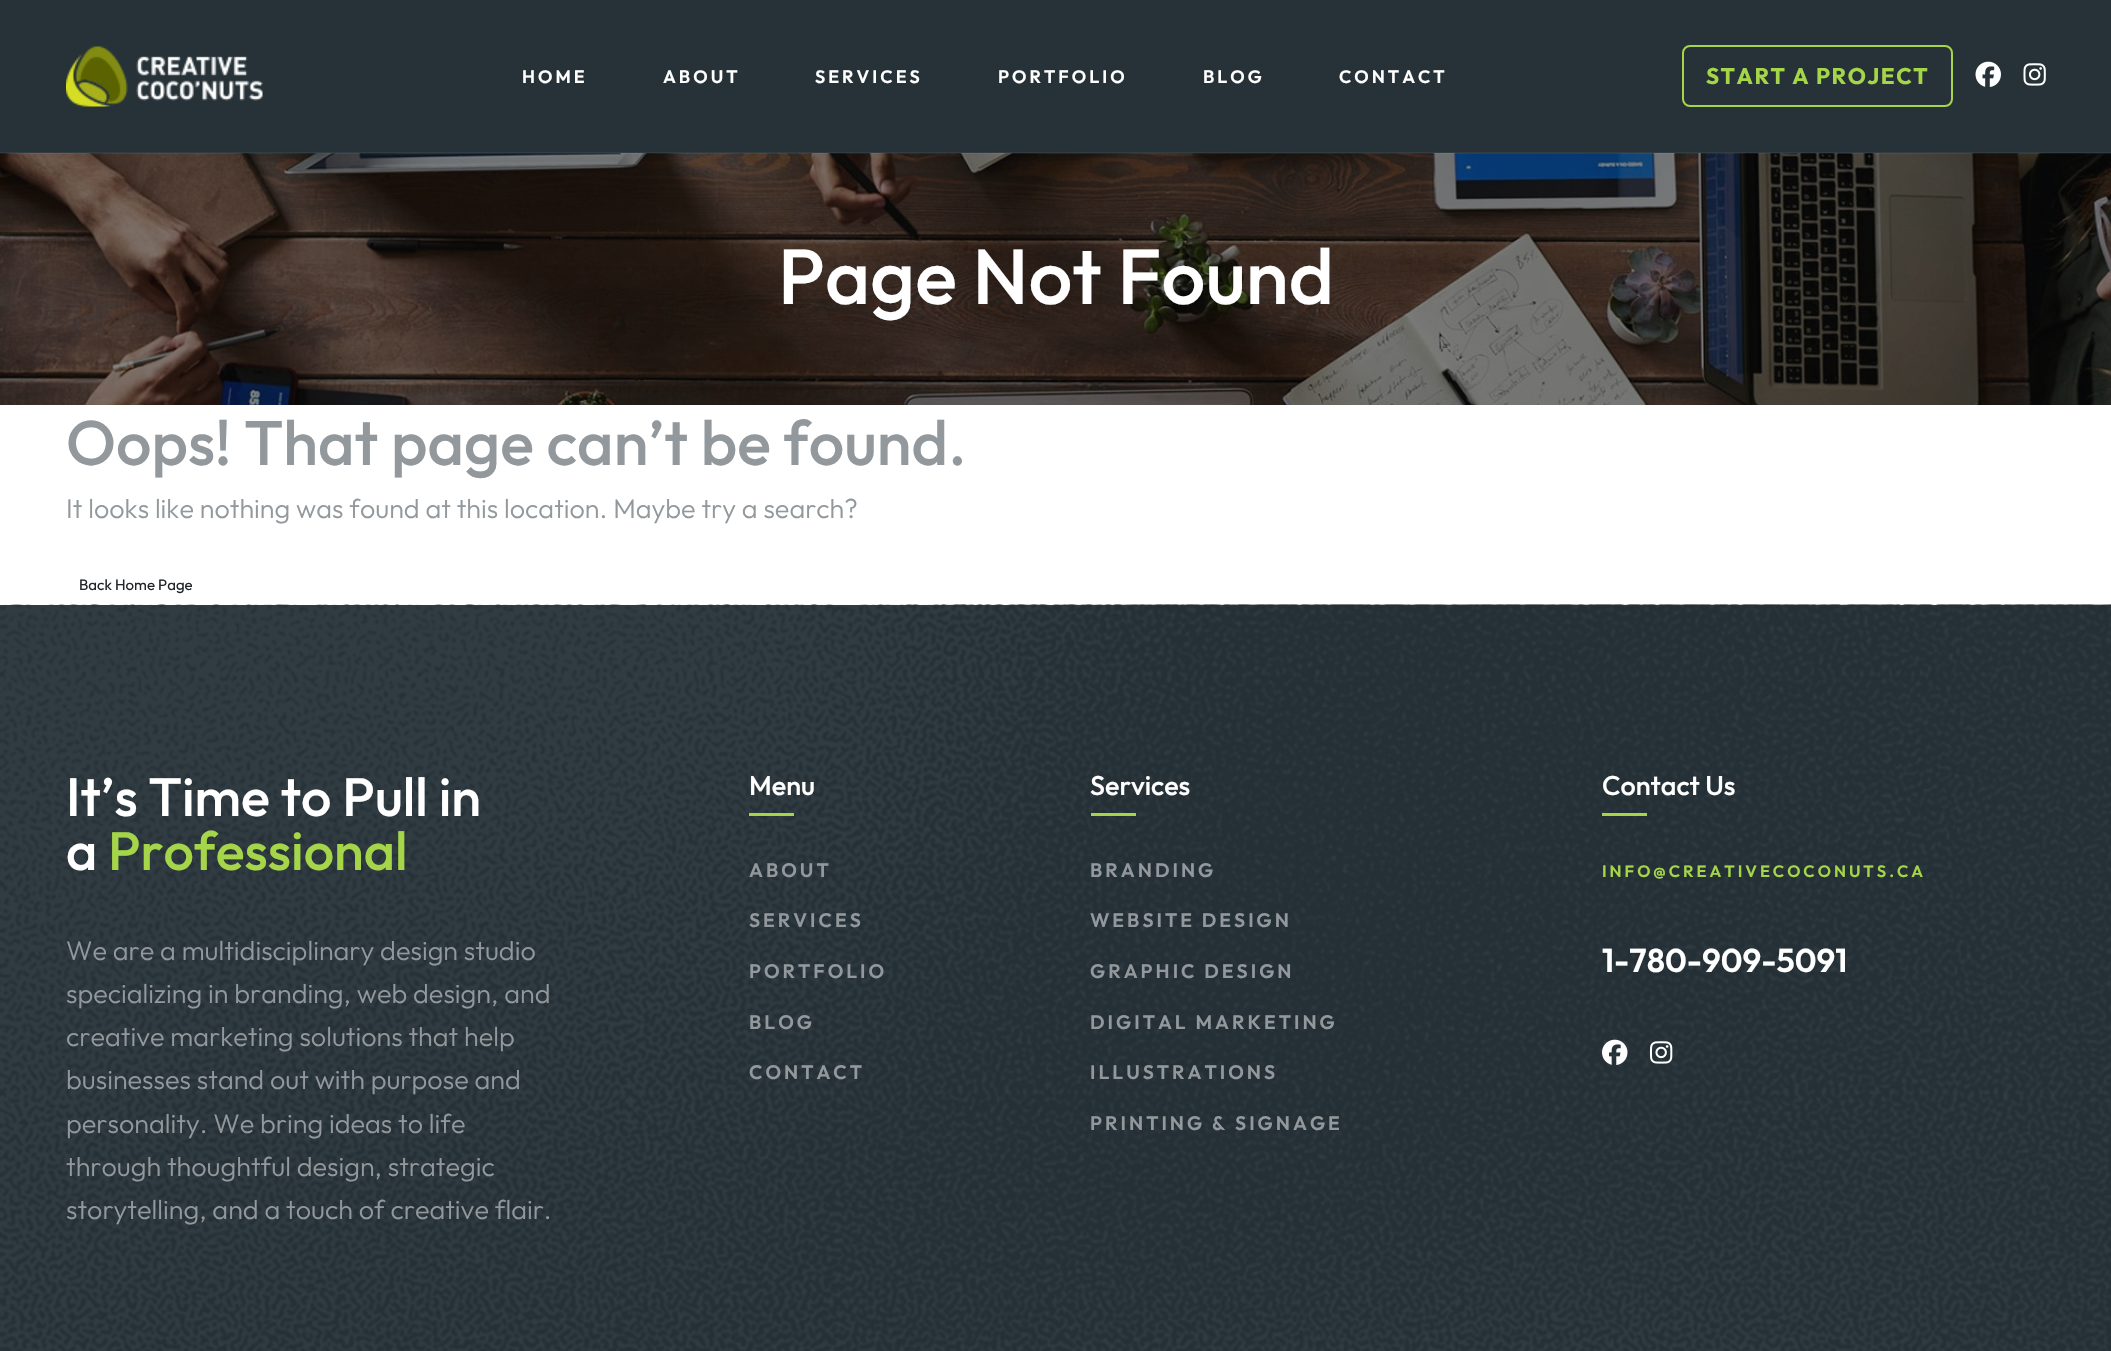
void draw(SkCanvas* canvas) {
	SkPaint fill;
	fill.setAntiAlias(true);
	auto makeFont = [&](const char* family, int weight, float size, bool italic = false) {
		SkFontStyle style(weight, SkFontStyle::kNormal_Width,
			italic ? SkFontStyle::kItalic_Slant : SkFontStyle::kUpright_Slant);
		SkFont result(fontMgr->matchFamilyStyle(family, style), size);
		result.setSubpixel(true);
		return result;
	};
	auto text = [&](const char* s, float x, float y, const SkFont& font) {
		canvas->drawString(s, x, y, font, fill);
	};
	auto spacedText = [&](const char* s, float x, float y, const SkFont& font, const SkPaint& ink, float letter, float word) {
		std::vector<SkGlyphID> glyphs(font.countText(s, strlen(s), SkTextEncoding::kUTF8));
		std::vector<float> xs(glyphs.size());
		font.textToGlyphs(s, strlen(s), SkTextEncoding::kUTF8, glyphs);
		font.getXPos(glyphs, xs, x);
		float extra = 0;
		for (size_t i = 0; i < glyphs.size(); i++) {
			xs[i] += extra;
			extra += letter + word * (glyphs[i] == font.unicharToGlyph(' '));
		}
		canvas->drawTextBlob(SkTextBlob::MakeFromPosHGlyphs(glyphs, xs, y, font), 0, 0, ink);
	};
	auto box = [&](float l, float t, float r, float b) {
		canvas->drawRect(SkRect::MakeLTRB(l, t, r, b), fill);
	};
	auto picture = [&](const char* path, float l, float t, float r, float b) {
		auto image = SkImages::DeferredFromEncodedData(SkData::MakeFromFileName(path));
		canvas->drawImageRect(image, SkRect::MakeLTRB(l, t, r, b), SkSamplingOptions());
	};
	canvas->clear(0xFFFFFFFF);
	fill.setColor(0xFF263238);
	box(0, 0, 2111, 153);
	picture("image3.png", 0, 153, 2111, 405);
	fill.setColor(0x0DFFFFFF);
	box(0, 152, 2111, 154);
	picture("image0.png", 66, 46, 263, 107);
	fill.setStyle(SkPaint::kStroke_Style);
	fill.setStrokeWidth(2);
	fill.setColor(0xFFA5D549);
	canvas->drawRoundRect(SkRect::MakeLTRB(1683, 46, 1952, 106), 7, 7, fill);
	picture("image1.png", 1975, 61, 2001, 87);
	picture("image2.png", 2023, 63, 2046, 86);
	picture("image4.png", 0, 604, 2111, 1351);
	fill.setStyle(SkPaint::kFill_Style);
	box(749, 813, 794, 816);
	box(1091, 813, 1136, 816);
	box(1602, 813, 1647, 816);
	picture("image5.png", 1602, 1039, 1628, 1065);
	picture("image6.png", 1650, 1041, 1673, 1064);
	auto font1 = makeFont("Outfit", 600, 18);
	fill.setColor(0xFFFFFFFF);
	spacedText("HOME", 522, 83, font1, fill, 3, 0);
	spacedText("ABOUT", 663, 83, font1, fill, 3, 0);
	spacedText("SERVICES", 815, 83, font1, fill, 3, 0);
	spacedText("PORTFOLIO", 998, 83, font1, fill, 3, 0);
	spacedText("BLOG", 1203, 83, font1, fill, 3, 0);
	spacedText("CONTACT", 1339, 83, font1, fill, 3, 0);
	auto font2 = makeFont("Outfit", 700, 22.5f);
	fill.setColor(0xFFA5D549);
	spacedText("START A PROJECT", 1706, 84, font2, fill, 1.5f, 0);
	auto font3 = makeFont("Outfit", 500, 78);
	fill.setColor(0xFFFFFFFF);
	text("Page Not Found", 778, 304, font3);
	auto font4 = makeFont("Outfit", 500, 63);
	fill.setColor(0xFF92989B);
	text("Oops! That page can’t be found.", 66, 465, font4);
	auto font5 = makeFont("Outfit", 300, 27);
	text("It looks like nothing was found at this location. Maybe try a search?", 66, 518, font5);
	auto font6 = makeFont("Outfit", 400, 15);
	fill.setColor(0xFF212529);
	text("Back Home Page", 79, 590, font6);
	auto font7 = makeFont("Outfit", 500, 54);
	fill.setColor(0xFFFFFFFF);
	text("It’s Time to Pull in", 66, 816, font7);
	text("a", 66, 870, font7);
	fill.setColor(0xFFA5D549);
	text("Professional", 108, 870, font7);
	fill.setColor(0xFF92989B);
	text("We are a multidisciplinary design studio", 66, 960, font5);
	text("specializing in branding, web design, and", 66, 1003, font5);
	text("creative marketing solutions that help", 66, 1046, font5);
	text("businesses stand out with purpose and", 66, 1089, font5);
	text("personality. We bring ideas to life", 66, 1133, font5);
	text("through thoughtful design, strategic", 66, 1176, font5);
	text("storytelling, and a touch of creative flair.", 66, 1219, font5);
	auto font8 = makeFont("Outfit", 500, 27);
	fill.setColor(0xFFFFFFFF);
	text("Menu", 749, 795, font8);
	auto font9 = makeFont("Outfit", 600, 19.5f);
	fill.setColor(0xFF92989B);
	spacedText("ABOUT", 749, 877, font9, fill, 3, 0);
	spacedText("SERVICES", 749, 927, font9, fill, 3, 0);
	spacedText("PORTFOLIO", 749, 978, font9, fill, 3, 0);
	spacedText("BLOG", 749, 1029, font9, fill, 3, 0);
	spacedText("CONTACT", 749, 1079, font9, fill, 3, 0);
	fill.setColor(0xFFFFFFFF);
	text("Services", 1090, 795, font8);
	fill.setColor(0xFF92989B);
	spacedText("BRANDING", 1090, 877, font9, fill, 3, 0);
	spacedText("WEBSITE DESIGN", 1090, 927, font9, fill, 3, 0);
	spacedText("GRAPHIC DESIGN", 1090, 978, font9, fill, 3, 0);
	spacedText("DIGITAL MARKETING", 1090, 1029, font9, fill, 3, 0);
	spacedText("ILLUSTRATIONS", 1090, 1079, font9, fill, 3, 0);
	spacedText("PRINTING & SIGNAGE", 1090, 1130, font9, fill, 3, 0);
	fill.setColor(0xFFFFFFFF);
	text("Contact Us", 1602, 795, font8);
	auto font10 = makeFont("Outfit", 600, 16.5f);
	fill.setColor(0xFFA5D549);
	spacedText("INFO@CREATIVECOCONUTS.CA", 1602, 877, font10, fill, 3, 0);
	auto font11 = makeFont("Outfit", 600, 33);
	fill.setColor(0xFFFFFFFF);
	text("1-780-909-5091", 1602, 972, font11);
}
